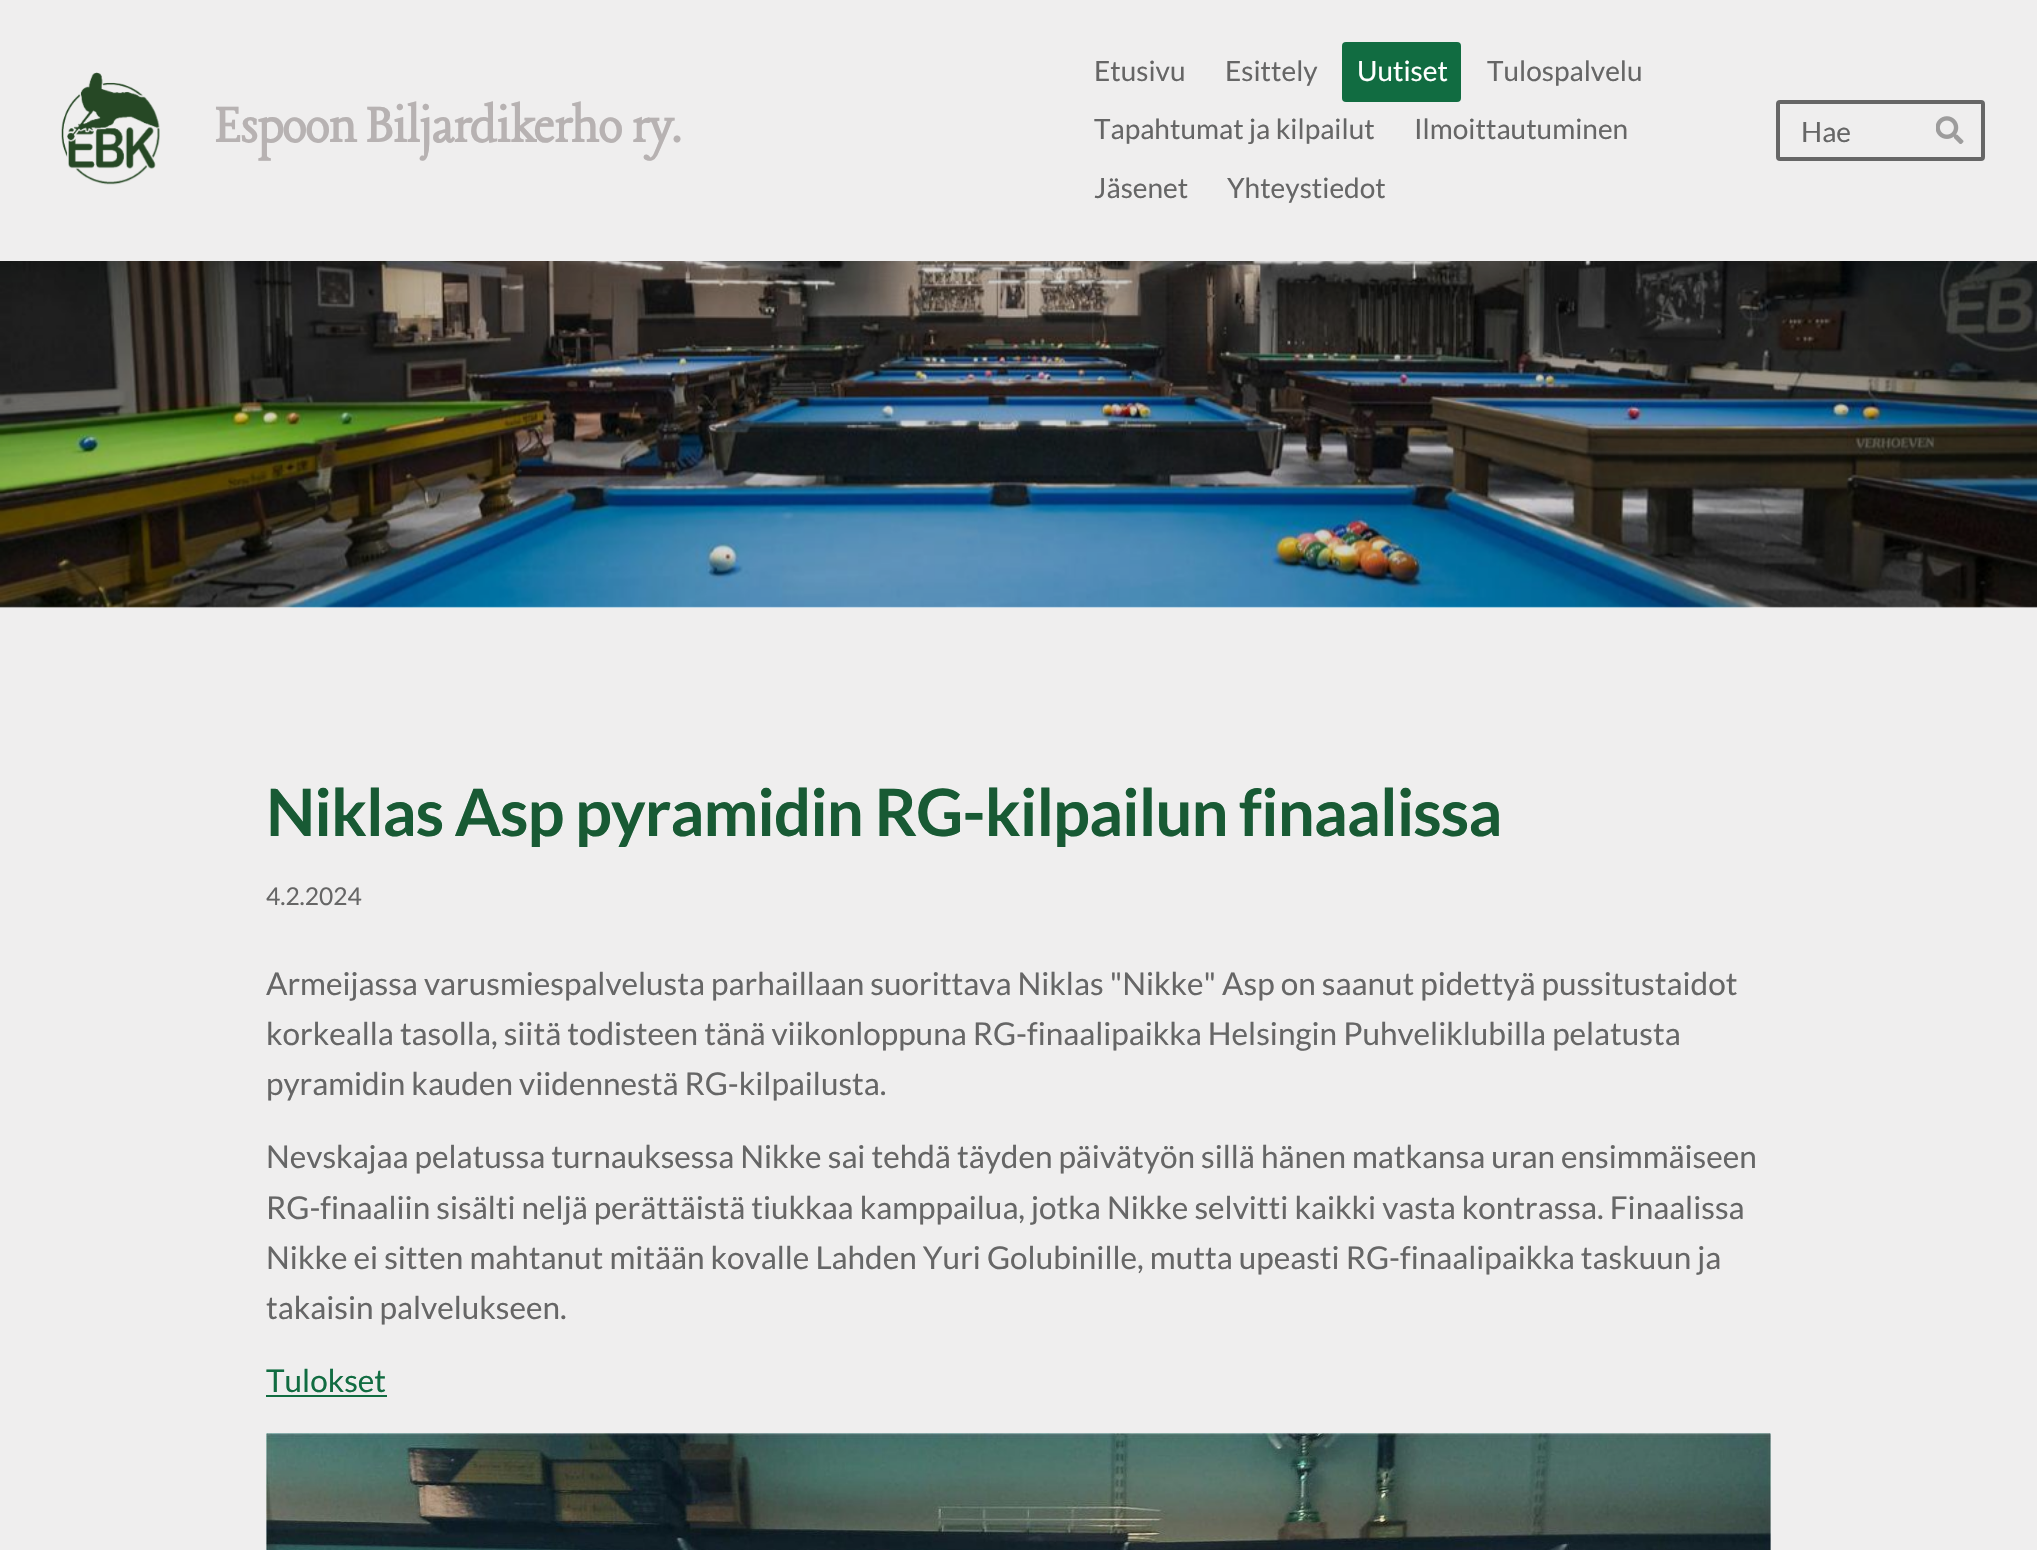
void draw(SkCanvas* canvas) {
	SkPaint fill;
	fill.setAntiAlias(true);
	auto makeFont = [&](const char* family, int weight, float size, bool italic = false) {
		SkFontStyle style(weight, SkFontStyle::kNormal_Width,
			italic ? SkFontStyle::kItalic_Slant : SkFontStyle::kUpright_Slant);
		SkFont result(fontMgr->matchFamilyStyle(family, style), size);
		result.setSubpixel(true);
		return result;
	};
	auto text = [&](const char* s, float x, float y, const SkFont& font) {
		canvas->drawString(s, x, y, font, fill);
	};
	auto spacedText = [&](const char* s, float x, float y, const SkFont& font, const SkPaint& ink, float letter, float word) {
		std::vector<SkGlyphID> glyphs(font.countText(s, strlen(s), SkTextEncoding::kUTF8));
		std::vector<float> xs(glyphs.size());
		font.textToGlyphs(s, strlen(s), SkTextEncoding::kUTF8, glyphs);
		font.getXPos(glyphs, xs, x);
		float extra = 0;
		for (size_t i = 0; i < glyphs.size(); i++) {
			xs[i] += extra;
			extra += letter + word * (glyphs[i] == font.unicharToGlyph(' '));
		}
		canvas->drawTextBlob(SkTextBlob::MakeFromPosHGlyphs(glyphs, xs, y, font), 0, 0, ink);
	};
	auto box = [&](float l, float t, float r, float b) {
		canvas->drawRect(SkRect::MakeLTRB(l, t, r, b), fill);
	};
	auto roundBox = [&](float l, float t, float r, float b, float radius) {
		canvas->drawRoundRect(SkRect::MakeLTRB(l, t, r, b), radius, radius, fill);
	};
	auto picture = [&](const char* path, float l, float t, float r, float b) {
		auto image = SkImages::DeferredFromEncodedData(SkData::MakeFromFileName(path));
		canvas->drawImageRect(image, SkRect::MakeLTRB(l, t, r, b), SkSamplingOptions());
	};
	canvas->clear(0xFFEFEEEE);
	picture("image0.png", 0, 261, 2037, 608);
	picture("image1.png", 61, 72, 160, 185);
	fill.setColor(0xFF116C41);
	roundBox(1342, 42, 1461, 102, 4);
	fill.setStyle(SkPaint::kStroke_Style);
	fill.setStrokeWidth(4);
	fill.setColor(0xFF666666);
	canvas->drawRoundRect(SkRect::MakeLTRB(1778, 102, 1983, 159), 2, 2, fill);
	picture("image2.png", 1936, 116, 1964, 144);
	fill.setStyle(SkPaint::kFill_Style);
	fill.setColor(0xFF116C41);
	box(266, 1395, 387, 1397);
	picture("image3.png", 266, 1433, 1771, 1550);
	auto font1 = makeFont("Lancelot", 700, 57.75f);
	fill.setColor(0xFFB7B2B2);
	spacedText("Espoon Biljardikerho ry.", 215, 142, font1, fill, -0.9f, 0);
	auto font2 = makeFont("Lato", 400, 28);
	fill.setColor(0xFF666666);
	text("Etusivu", 1094, 81, font2);
	text("Esittely", 1225, 81, font2);
	fill.setColor(0xFFFFFFFF);
	text("Uutiset", 1357, 81, font2);
	fill.setColor(0xFF666666);
	text("Tulospalvelu", 1487, 81, font2);
	text("Tapahtumat ja kilpailut", 1094, 139, font2);
	text("Ilmoittautuminen", 1414, 139, font2);
	text("Jäsenet", 1094, 198, font2);
	text("Yhteystiedot", 1227, 198, font2);
	text("Hae", 1801, 142, font2);
	auto font3 = makeFont("Lato", 700, 65.2f);
	fill.setColor(0xFF185A34);
	spacedText("Niklas Asp pyramidin RG-kilpailun finaalissa", 266, 836, font3, fill, -1, 0);
	auto font4 = makeFont("Lato", 400, 24.5f);
	fill.setColor(0xFF666666);
	text("4.2.2024", 266, 905, font4);
	auto font5 = makeFont("Lato", 400, 31.5f);
	text("Armeijassa varusmiespalvelusta parhaillaan suorittava Niklas \"Nikke\" Asp on saanut pidettyä pussitustaidot", 266, 995, font5);
	text("korkealla tasolla, siitä todisteen tänä viikonloppuna RG-finaalipaikka Helsingin Puhveliklubilla pelatusta", 266, 1045, font5);
	text("pyramidin kauden viidennestä RG-kilpailusta.", 266, 1095, font5);
	text("Nevskajaa pelatussa turnauksessa Nikke sai tehdä täyden päivätyön sillä hänen matkansa uran ensimmäiseen", 266, 1168, font5);
	text("RG-finaaliin sisälti neljä perättäistä tiukkaa kamppailua, jotka Nikke selvitti kaikki vasta kontrassa. Finaalissa", 266, 1219, font5);
	text("Nikke ei sitten mahtanut mitään kovalle Lahden Yuri Golubinille, mutta upeasti RG-finaalipaikka taskuun ja", 266, 1269, font5);
	text("takaisin palvelukseen.", 266, 1319, font5);
	fill.setColor(0xFF116C41);
	text("Tulokset", 266, 1392, font5);
}
